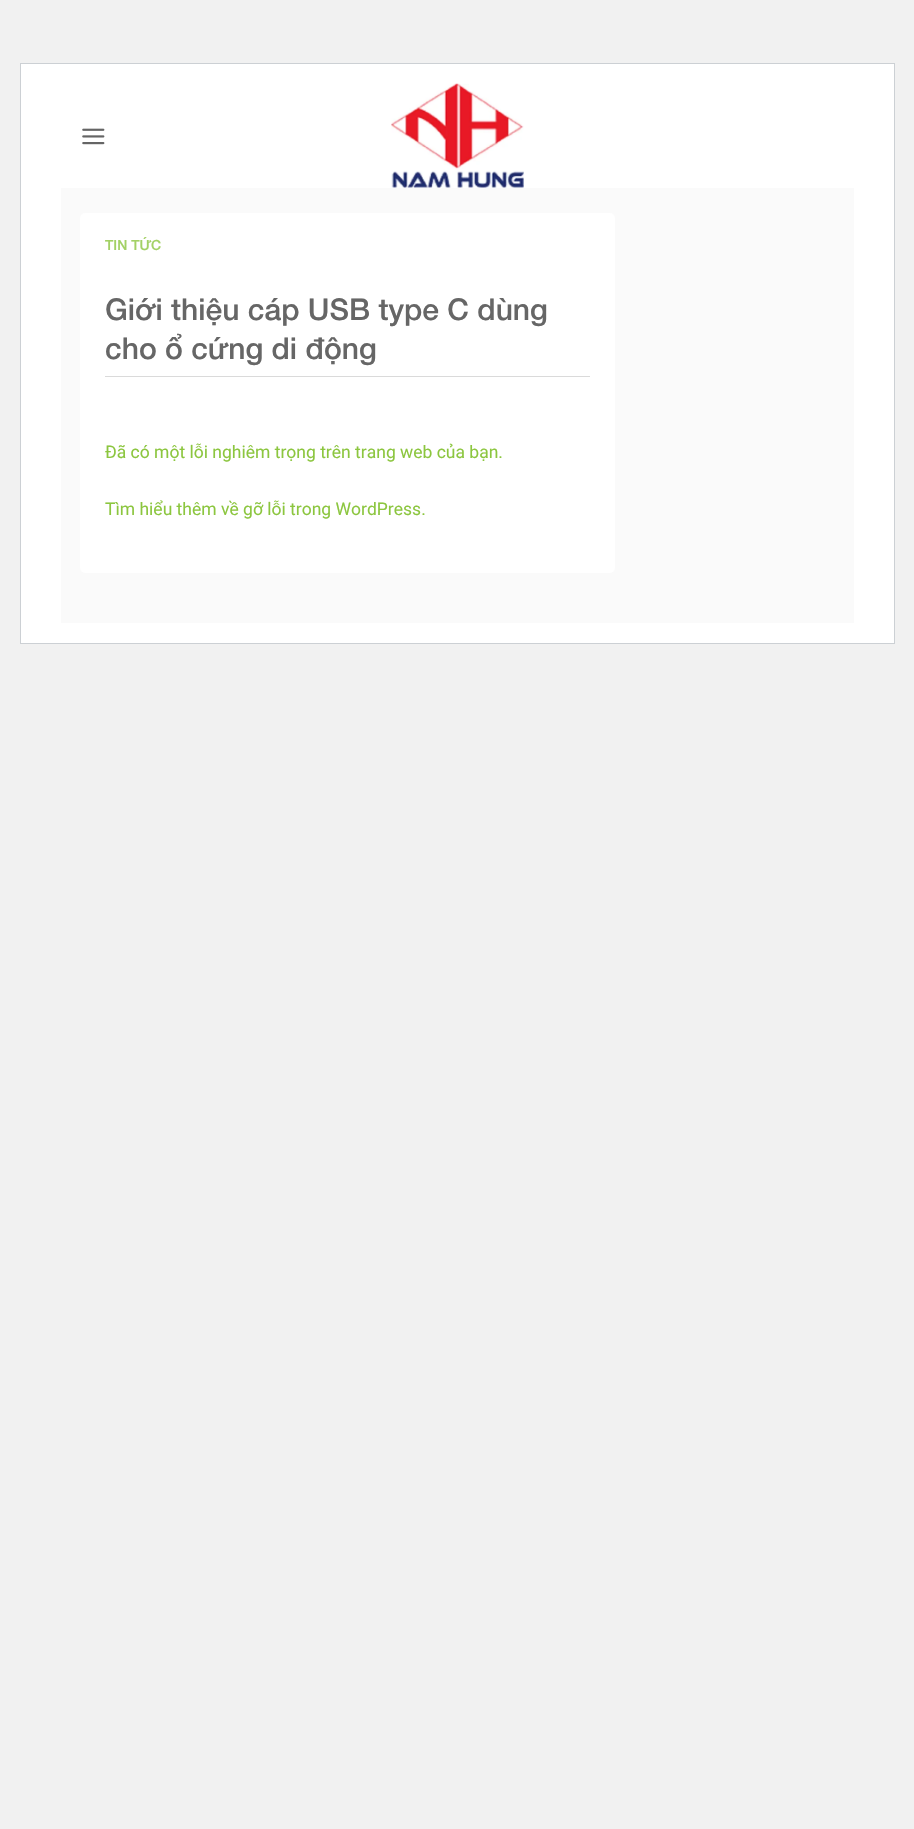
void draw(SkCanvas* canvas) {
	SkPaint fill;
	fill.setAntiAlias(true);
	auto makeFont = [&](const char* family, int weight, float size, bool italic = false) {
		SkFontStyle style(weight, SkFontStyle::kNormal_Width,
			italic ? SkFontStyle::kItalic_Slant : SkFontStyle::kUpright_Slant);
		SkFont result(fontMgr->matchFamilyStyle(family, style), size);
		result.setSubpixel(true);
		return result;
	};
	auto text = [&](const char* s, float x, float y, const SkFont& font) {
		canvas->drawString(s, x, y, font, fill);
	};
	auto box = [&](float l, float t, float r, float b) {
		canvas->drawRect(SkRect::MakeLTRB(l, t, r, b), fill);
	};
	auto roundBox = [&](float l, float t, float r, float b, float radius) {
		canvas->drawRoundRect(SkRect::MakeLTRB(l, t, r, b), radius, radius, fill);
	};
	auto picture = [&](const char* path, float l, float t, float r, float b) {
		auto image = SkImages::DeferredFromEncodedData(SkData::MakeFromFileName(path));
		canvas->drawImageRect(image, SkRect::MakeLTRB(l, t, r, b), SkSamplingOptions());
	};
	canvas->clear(0xFFF1F1F1);
	fill.setColor(0xFFFFFFFF);
	canvas->drawRect(SkRect::MakeLTRB(20.5f, 63.5f, 894.5f, 643.5f), fill);
	fill.setStyle(SkPaint::kStroke_Style);
	fill.setStrokeWidth(1);
	fill.setColor(0xFFCCD0D4);
	canvas->drawRect(SkRect::MakeLTRB(20.5f, 63.5f, 894.5f, 643.5f), fill);
	picture("image0.png", 82, 128, 105, 145);
	picture("image1.png", 391, 83, 524, 188);
	fill.setStyle(SkPaint::kFill_Style);
	fill.setColor(0xFFFAFAFA);
	box(61, 188, 854, 623);
	fill.setColor(0xFFFFFFFF);
	roundBox(80, 213, 615, 573, 5);
	fill.setColor(0xFFDADADA);
	box(105, 376, 590, 377);
	auto font1 = makeFont("Helvetica Neue", 500, 14);
	fill.setColor(0xFFA3D165);
	text("TIN TỨC", 105, 250, font1);
	auto font2 = makeFont("Helvetica Neue", 500, 30);
	fill.setColor(0xFF666666);
	text("Giới thiệu cáp USB type C dùng", 105, 320, font2);
	text("cho ổ cứng di động", 105, 359, font2);
	auto font3 = makeFont("Roboto", 400, 17.5f);
	fill.setColor(0xFF8CC63F);
	text("Đã có một lỗi nghiêm trọng trên trang web của bạn.", 105, 458, font3);
	text("Tìm hiểu thêm về gỡ lỗi trong WordPress.", 105, 515, font3);
}
